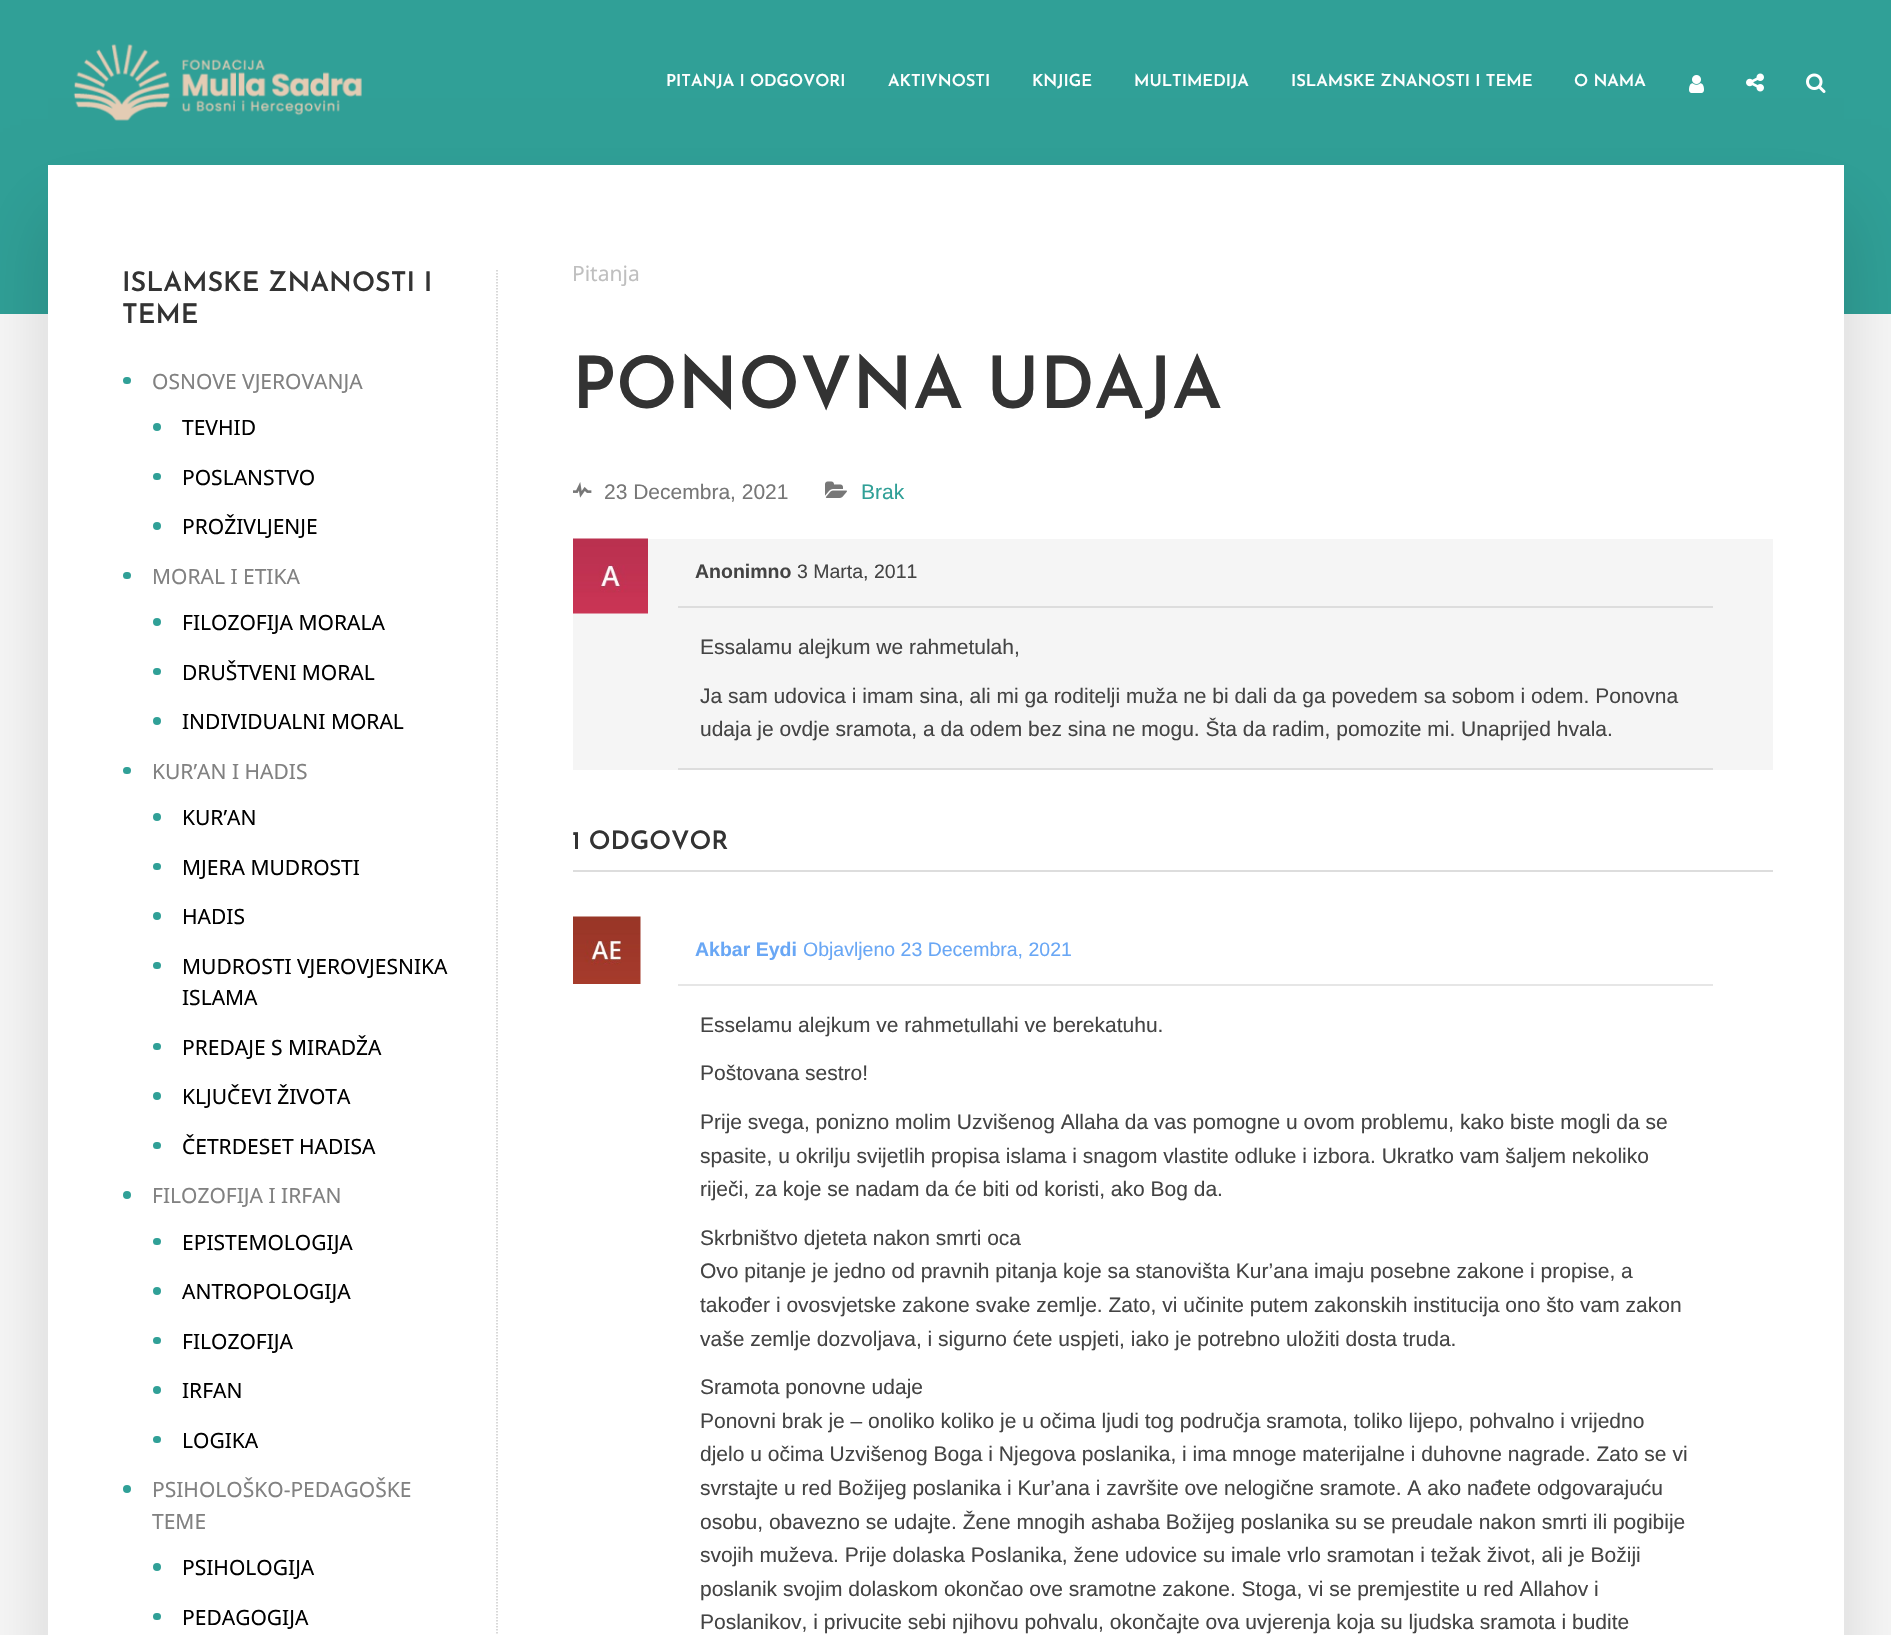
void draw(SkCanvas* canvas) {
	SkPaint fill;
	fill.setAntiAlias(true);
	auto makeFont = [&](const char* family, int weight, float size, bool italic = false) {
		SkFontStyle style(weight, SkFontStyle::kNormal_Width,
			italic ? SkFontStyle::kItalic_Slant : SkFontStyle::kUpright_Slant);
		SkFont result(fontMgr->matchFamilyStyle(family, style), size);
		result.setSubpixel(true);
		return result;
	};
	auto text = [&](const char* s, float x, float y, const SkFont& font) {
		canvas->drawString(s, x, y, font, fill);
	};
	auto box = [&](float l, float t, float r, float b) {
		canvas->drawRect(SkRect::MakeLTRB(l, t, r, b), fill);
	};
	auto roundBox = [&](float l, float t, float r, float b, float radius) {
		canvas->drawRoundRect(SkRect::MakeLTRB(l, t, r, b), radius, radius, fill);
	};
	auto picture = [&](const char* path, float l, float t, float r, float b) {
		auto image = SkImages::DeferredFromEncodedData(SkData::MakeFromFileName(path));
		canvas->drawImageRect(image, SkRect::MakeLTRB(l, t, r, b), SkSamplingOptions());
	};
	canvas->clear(0xFFF8F8F8);
	fill.setColor(0xFF30A097);
	box(0, 0, 1891, 314);
	fill.setColor(0x26010101);
	fill.setMaskFilter(SkMaskFilter::MakeBlur(kNormal_SkBlurStyle, 37.5f));
	canvas->drawRect(SkRect::MakeLTRB(48, 210, 1844, 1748), fill);
	fill.setMaskFilter(nullptr);
	picture("image0.png", 73, 44, 362, 121);
	picture("image1.png", 1689, 75, 1704, 93);
	picture("image2.png", 1746, 73, 1764, 92);
	picture("image3.png", 1806, 73, 1826, 93);
	fill.setColor(0xFFFFFFFF);
	box(48, 165, 1844, 1635);
	fill.setStyle(SkPaint::kStroke_Style);
	fill.setStrokeWidth(1.5f);
	fill.setColor(0xFFCCCCCC);
	fill.setPathEffect(SkDashPathEffect::Make({{1.5f, 1.5f}}, 0));
	canvas->drawPath(SkPathBuilder().moveTo(497, 270).lineTo(497, 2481).detach(), fill);
	fill.setPathEffect(nullptr);
	fill.setStyle(SkPaint::kFill_Style);
	fill.setColor(0xFF30A097);
	roundBox(123, 377, 131, 384, 3.5f);
	canvas->drawCircle(157, 427, 4, fill);
	roundBox(153, 473, 161, 480, 3.5f);
	canvas->drawCircle(157, 526, 4, fill);
	roundBox(123, 572, 131, 579, 3.5f);
	canvas->drawCircle(157, 622, 4, fill);
	roundBox(153, 668, 161, 675, 3.5f);
	canvas->drawCircle(157, 721, 4, fill);
	roundBox(123, 767, 131, 774, 3.5f);
	canvas->drawCircle(157, 817, 4, fill);
	roundBox(153, 863, 161, 870, 3.5f);
	canvas->drawCircle(157, 916, 4, fill);
	roundBox(153, 962, 161, 969, 3.5f);
	roundBox(153, 1043, 161, 1050, 3.5f);
	canvas->drawCircle(157, 1096, 4, fill);
	roundBox(153, 1142, 161, 1149, 3.5f);
	canvas->drawCircle(127, 1195, 4, fill);
	roundBox(153, 1238, 161, 1245, 3.5f);
	canvas->drawCircle(157, 1291, 4, fill);
	roundBox(153, 1337, 161, 1344, 3.5f);
	canvas->drawCircle(157, 1390, 4, fill);
	roundBox(153, 1436, 161, 1443, 3.5f);
	canvas->drawCircle(127, 1489, 4, fill);
	canvas->drawCircle(157, 1567, 4, fill);
	roundBox(153, 1613, 161, 1620, 3.5f);
	picture("image4.png", 573, 482, 592, 498);
	picture("image5.png", 825, 481, 847, 498);
	fill.setColor(0xFFF5F5F5);
	box(573, 539, 1773, 770);
	picture("image6.png", 573, 538, 648, 614);
	fill.setColor(0xFFDDDDDD);
	box(678, 606, 1713, 608);
	box(678, 768, 1713, 770);
	box(573, 870, 1773, 872);
	picture("image7.png", 573, 916, 641, 984);
	fill.setColor(0xFFE6E6E6);
	box(678, 984, 1713, 986);
	auto font1 = makeFont("Josefin Sans", 600, 16.5f);
	fill.setColor(0xFFFFFFFF);
	text("PITANJA I ODGOVORI", 666, 86, font1);
	text("AKTIVNOSTI", 888, 86, font1);
	text("KNJIGE", 1032, 86, font1);
	text("MULTIMEDIJA", 1134, 86, font1);
	text("ISLAMSKE ZNANOSTI I TEME", 1291, 86, font1);
	text("O NAMA", 1574, 86, font1);
	auto font2 = makeFont("Josefin Sans", 600, 27);
	fill.setColor(0xFF333333);
	text("ISLAMSKE ZNANOSTI I", 122, 291, font2);
	text("TEME", 122, 323, font2);
	auto font3 = makeFont("Noto Sans", 400, 21);
	fill.setColor(0xFF818181);
	text("OSNOVE VJEROVANJA", 152, 389, font3);
	fill.setColor(0xFF000000);
	text("TEVHID", 182, 435, font3);
	text("POSLANSTVO", 182, 485, font3);
	text("PROŽIVLJENJE", 182, 534, font3);
	fill.setColor(0xFF818181);
	text("MORAL I ETIKA", 152, 584, font3);
	fill.setColor(0xFF000000);
	text("FILOZOFIJA MORALA", 182, 630, font3);
	text("DRUŠTVENI MORAL", 182, 680, font3);
	text("INDIVIDUALNI MORAL", 182, 729, font3);
	fill.setColor(0xFF818181);
	text("KUR’AN I HADIS", 152, 779, font3);
	fill.setColor(0xFF000000);
	text("KUR’AN", 182, 825, font3);
	text("MJERA MUDROSTI", 182, 875, font3);
	text("HADIS", 182, 924, font3);
	text("MUDROSTI VJEROVJESNIKA", 182, 974, font3);
	text("ISLAMA", 182, 1005, font3);
	text("PREDAJE S MIRADŽA", 182, 1055, font3);
	text("KLJUČEVI ŽIVOTA", 182, 1104, font3);
	text("ČETRDESET HADISA", 182, 1154, font3);
	fill.setColor(0xFF818181);
	text("FILOZOFIJA I IRFAN", 152, 1203, font3);
	fill.setColor(0xFF000000);
	text("EPISTEMOLOGIJA", 182, 1250, font3);
	text("ANTROPOLOGIJA", 182, 1299, font3);
	text("FILOZOFIJA", 182, 1349, font3);
	text("IRFAN", 182, 1398, font3);
	text("LOGIKA", 182, 1448, font3);
	fill.setColor(0xFF818181);
	text("PSIHOLOŠKO-PEDAGOŠKE", 152, 1497, font3);
	text("TEME", 152, 1529, font3);
	fill.setColor(0xFF000000);
	text("PSIHOLOGIJA", 182, 1575, font3);
	text("PEDAGOGIJA", 182, 1625, font3);
	fill.setColor(0xFFBFBFBF);
	text("Pitanja", 572, 281, font3);
	auto font4 = makeFont("Josefin Sans", 600, 72);
	fill.setColor(0xFF333333);
	text("PONOVNA UDAJA", 572, 408, font4);
	auto font5 = makeFont("Liberation Sans", 400, 21);
	fill.setColor(0xFF777777);
	text("23 Decembra, 2021", 604, 499, font5);
	fill.setColor(0xFF30A097);
	text("Brak", 861, 499, font5);
	auto font6 = makeFont("Liberation Sans", 700, 19.5f);
	fill.setColor(0xFF444444);
	text("Anonimno", 695, 578, font6);
	auto font7 = makeFont("Liberation Sans", 400, 19.5f);
	text("3 Marta, 2011", 797, 578, font7);
	text("Essalamu alejkum we rahmetulah,", 700, 654, font5);
	text("Ja sam udovica i imam sina, ali mi ga roditelji muža ne bi dali da ga povedem sa sobom i odem. Ponovna", 700, 703, font5);
	text("udaja je ovdje sramota, a da odem bez sina ne mogu. Šta da radim, pomozite mi. Unaprijed hvala.", 700, 736, font5);
	auto font8 = makeFont("Josefin Sans", 600, 25.5f);
	fill.setColor(0xFF333333);
	text("1 ODGOVOR", 572, 849, font8);
	fill.setColor(0xFF69A7F5);
	text("Akbar Eydi", 695, 956, font6);
	text("Objavljeno 23 Decembra, 2021", 803, 956, font7);
	fill.setColor(0xFF444444);
	text("Esselamu alejkum ve rahmetullahi ve berekatuhu.", 700, 1032, font5);
	text("Poštovana sestro!", 700, 1080, font5);
	text("Prije svega, ponizno molim Uzvišenog Allaha da vas pomogne u ovom problemu, kako biste mogli da se", 700, 1129, font5);
	text("spasite, u okrilju svijetlih propisa islama i snagom vlastite odluke i izbora. Ukratko vam šaljem nekoliko", 700, 1163, font5);
	text("riječi, za koje se nadam da će biti od koristi, ako Bog da.", 700, 1196, font5);
	text("Skrbništvo djeteta nakon smrti oca", 700, 1245, font5);
	text("Ovo pitanje je jedno od pravnih pitanja koje sa stanovišta Kur’ana imaju posebne zakone i propise, a", 700, 1278, font5);
	text("također i ovosvjetske zakone svake zemlje. Zato, vi učinite putem zakonskih institucija ono što vam zakon", 700, 1312, font5);
	text("vaše zemlje dozvoljava, i sigurno ćete uspjeti, iako je potrebno uložiti dosta truda.", 700, 1346, font5);
	text("Sramota ponovne udaje", 700, 1394, font5);
	text("Ponovni brak je – onoliko koliko je u očima ljudi tog područja sramota, toliko lijepo, pohvalno i vrijedno", 700, 1428, font5);
	text("djelo u očima Uzvišenog Boga i Njegova poslanika, i ima mnoge materijalne i duhovne nagrade. Zato se vi", 700, 1461, font5);
	text("svrstajte u red Božijeg poslanika i Kur’ana i završite ove nelogične sramote. A ako nađete odgovarajuću", 700, 1495, font5);
	text("osobu, obavezno se udajte. Žene mnogih ashaba Božijeg poslanika su se preudale nakon smrti ili pogibije", 700, 1529, font5);
	text("svojih muževa. Prije dolaska Poslanika, žene udovice su imale vrlo sramotan i težak život, ali je Božiji", 700, 1562, font5);
	text("poslanik svojim dolaskom okončao ove sramotne zakone. Stoga, vi se premjestite u red Allahov i", 700, 1596, font5);
	text("Poslanikov, i privucite sebi njihovu pohvalu, okončajte ova uvjerenja koja su ljudska sramota i budite", 700, 1629, font5);
}
